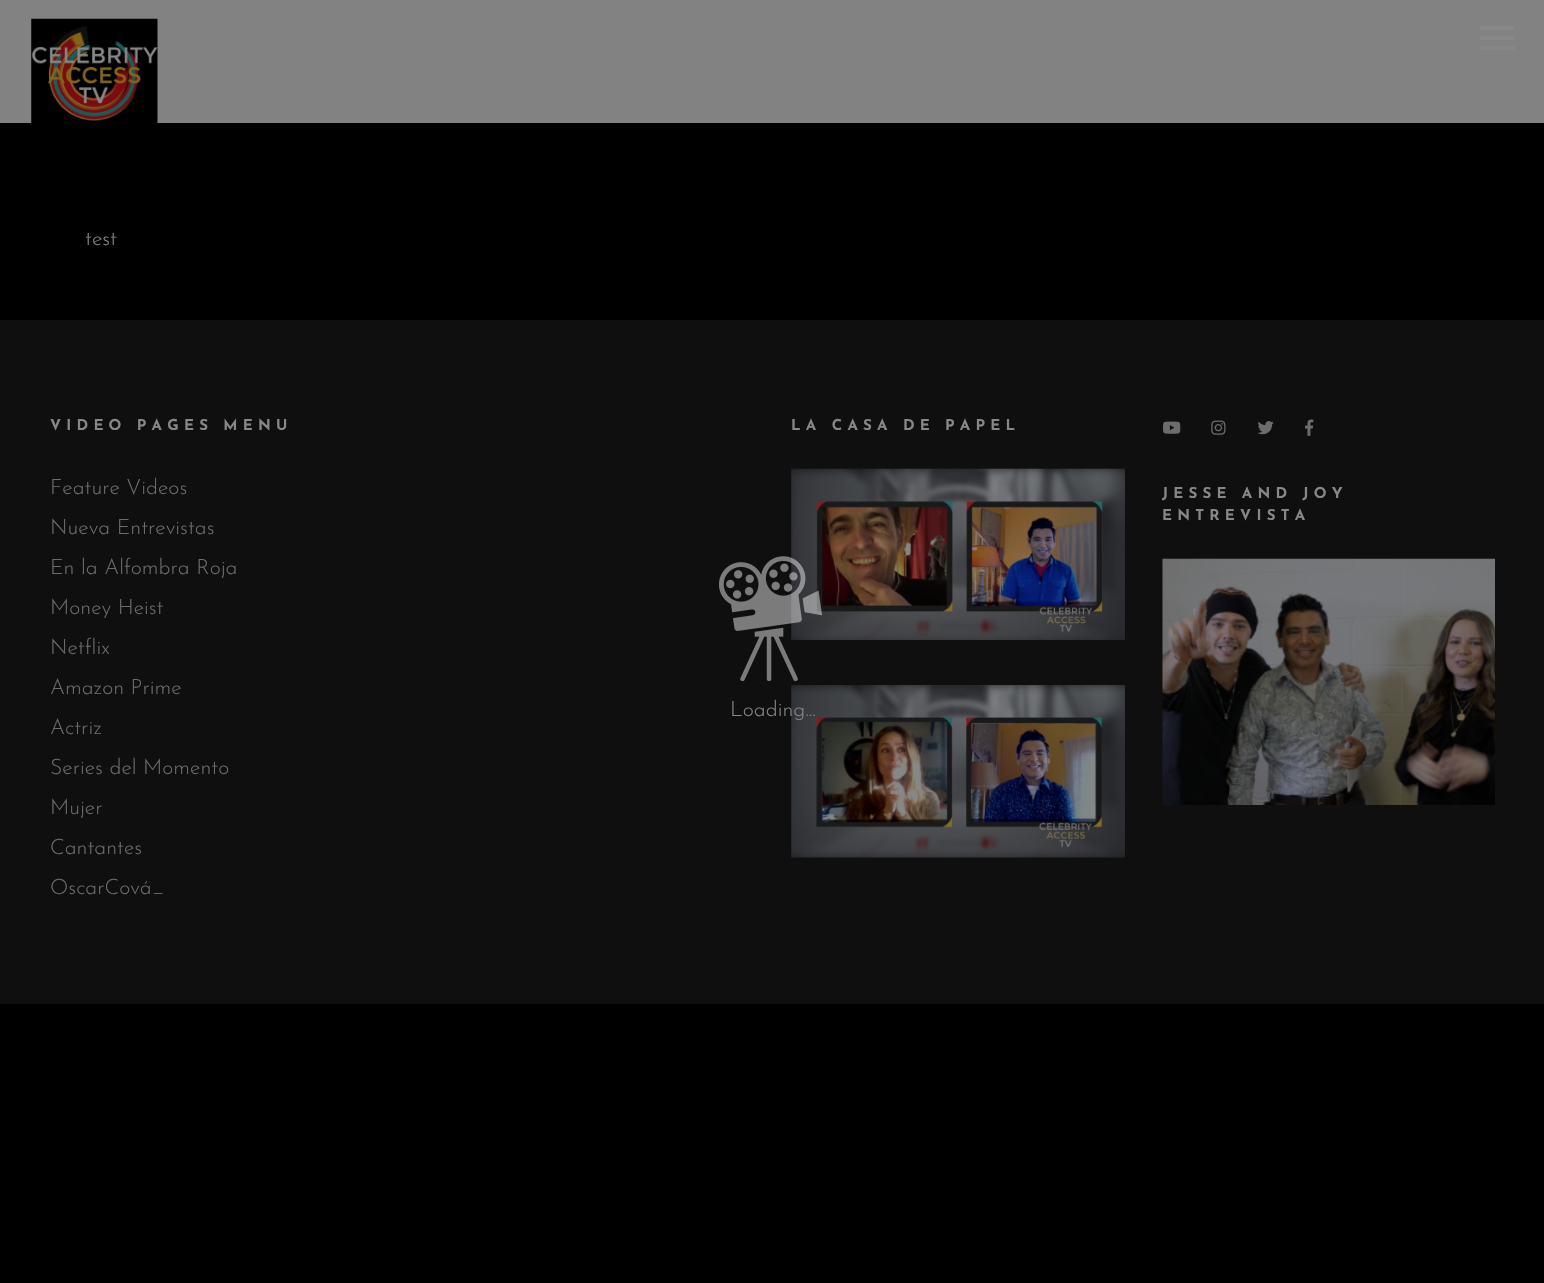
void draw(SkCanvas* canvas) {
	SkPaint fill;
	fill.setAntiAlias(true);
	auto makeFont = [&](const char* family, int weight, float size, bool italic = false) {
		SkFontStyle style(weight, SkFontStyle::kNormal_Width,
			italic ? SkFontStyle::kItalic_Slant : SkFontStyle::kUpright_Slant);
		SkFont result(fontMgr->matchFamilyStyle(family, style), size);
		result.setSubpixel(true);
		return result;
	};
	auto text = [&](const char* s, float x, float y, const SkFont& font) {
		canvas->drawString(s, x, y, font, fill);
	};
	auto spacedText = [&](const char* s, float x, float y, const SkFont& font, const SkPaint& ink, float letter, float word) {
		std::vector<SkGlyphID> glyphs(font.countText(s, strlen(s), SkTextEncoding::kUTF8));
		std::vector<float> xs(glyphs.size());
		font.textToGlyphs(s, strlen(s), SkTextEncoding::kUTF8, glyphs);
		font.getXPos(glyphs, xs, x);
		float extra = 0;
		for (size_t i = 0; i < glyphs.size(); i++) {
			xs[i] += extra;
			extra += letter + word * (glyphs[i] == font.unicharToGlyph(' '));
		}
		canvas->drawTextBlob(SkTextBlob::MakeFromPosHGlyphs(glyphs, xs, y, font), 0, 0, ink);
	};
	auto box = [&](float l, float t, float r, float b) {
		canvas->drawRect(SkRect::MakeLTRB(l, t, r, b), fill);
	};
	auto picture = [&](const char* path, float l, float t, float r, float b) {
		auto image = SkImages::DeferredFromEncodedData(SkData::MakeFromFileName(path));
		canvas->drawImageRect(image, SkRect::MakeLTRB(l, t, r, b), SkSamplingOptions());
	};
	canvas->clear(0xFF000000);
	fill.setColor(0xFF828282);
	box(0, 0, 1544, 123);
	picture("image0.png", 31, 18, 158, 123);
	fill.setColor(0xFF878787);
	box(1480, 26, 1514, 30);
	box(1480, 36, 1514, 40);
	box(1480, 46, 1514, 50);
	fill.setColor(0xFF0F0F0F);
	box(0, 320, 1544, 1004);
	picture("image1.png", 791, 468, 1125, 640);
	picture("image2.png", 791, 685, 1125, 858);
	picture("image3.png", 1163, 421, 1181, 434);
	picture("image4.png", 1211, 420, 1226, 435);
	picture("image5.png", 1257, 421, 1274, 435);
	picture("image6.png", 1305, 419, 1314, 436);
	picture("image7.png", 1162, 558, 1495, 805);
	picture("image8.png", 719, 556, 822, 681);
	auto font1 = makeFont("Josefin Sans", 300, 21.25f);
	fill.setColor(0xFF878787);
	text("test", 85, 245, font1);
	auto font2 = makeFont("Josefin Sans", 700, 15);
	spacedText("VIDEO PAGES MENU", 50, 430, font2, fill, 5.25f, 0);
	fill.setColor(0xFF6C6C6C);
	text("Feature Videos", 50, 494, font1);
	text("Nueva Entrevistas", 50, 534, font1);
	text("En la Alfombra Roja", 50, 574, font1);
	text("Money Heist", 50, 614, font1);
	text("Netflix", 50, 654, font1);
	text("Amazon Prime", 50, 694, font1);
	text("Actriz", 50, 734, font1);
	text("Series del Momento", 50, 774, font1);
	text("Mujer", 50, 814, font1);
	text("Cantantes", 50, 854, font1);
	text("OscarCová_", 50, 894, font1);
	fill.setColor(0xFF878787);
	spacedText("LA CASA DE PAPEL", 791, 430, font2, fill, 5.25f, 0);
	spacedText("JESSE AND JOY", 1162, 498, font2, fill, 5.25f, 0);
	spacedText("ENTREVISTA", 1162, 520, font2, fill, 5.25f, 0);
	text("Loading...", 730, 716, font1);
}
